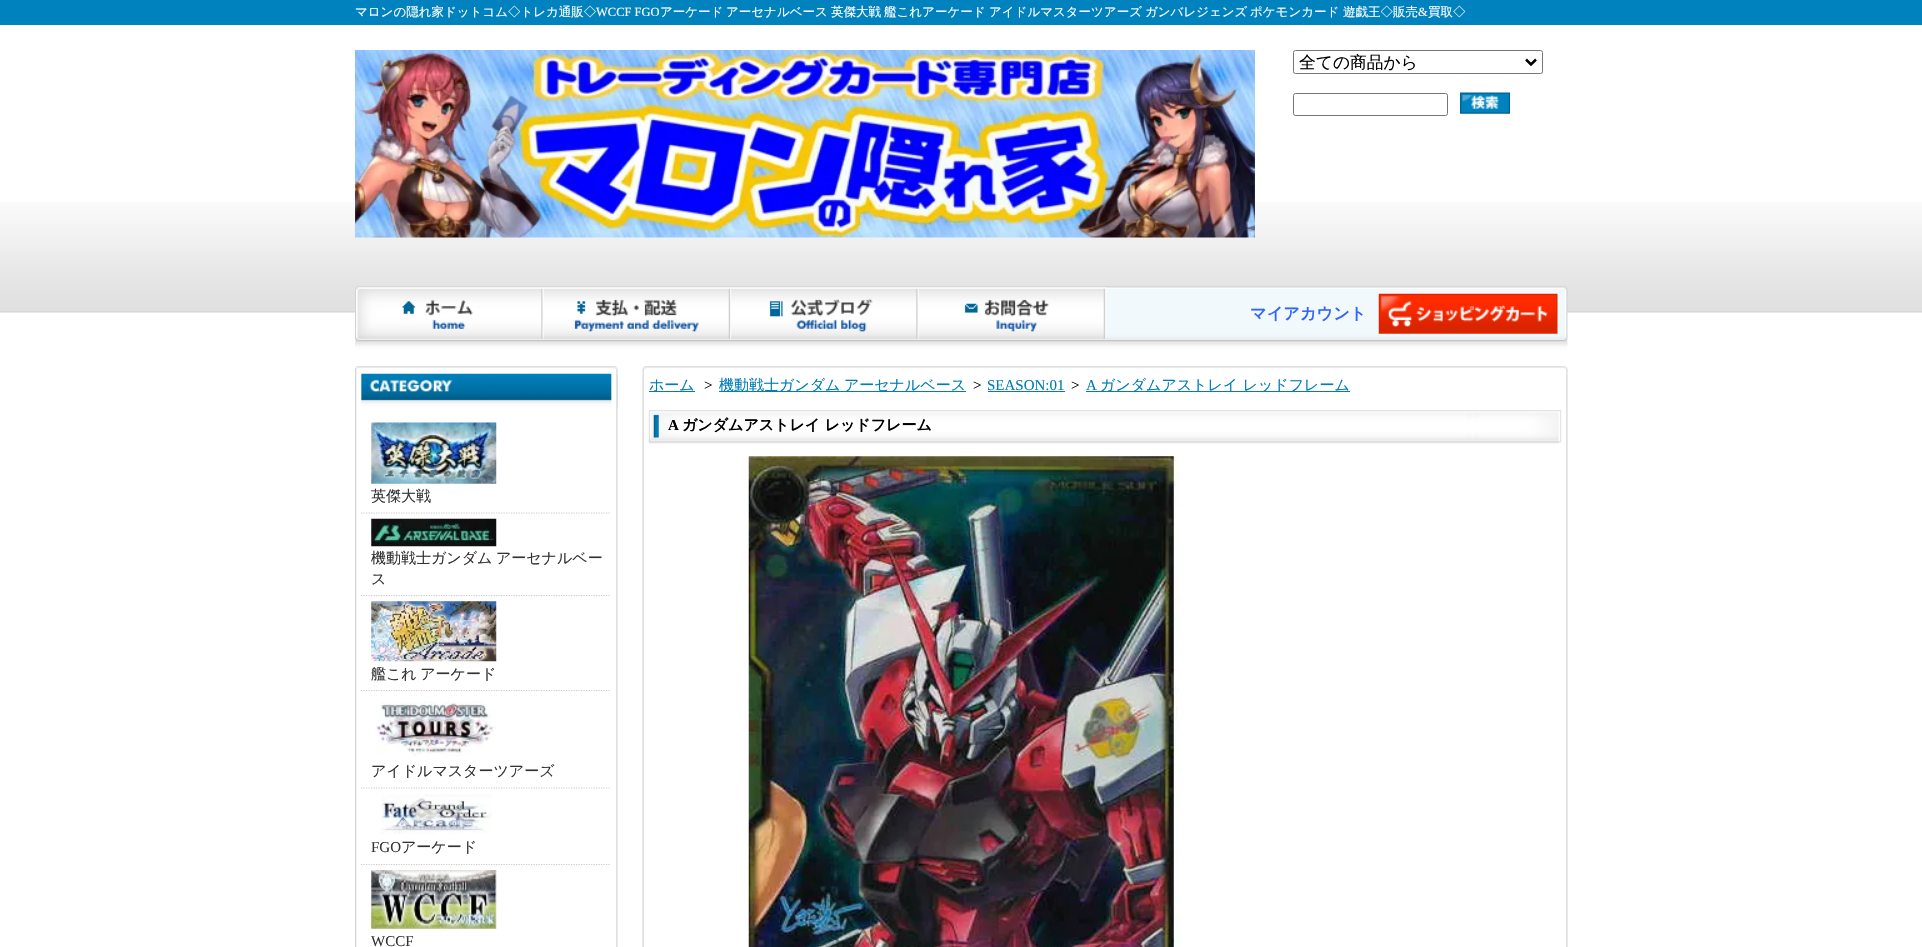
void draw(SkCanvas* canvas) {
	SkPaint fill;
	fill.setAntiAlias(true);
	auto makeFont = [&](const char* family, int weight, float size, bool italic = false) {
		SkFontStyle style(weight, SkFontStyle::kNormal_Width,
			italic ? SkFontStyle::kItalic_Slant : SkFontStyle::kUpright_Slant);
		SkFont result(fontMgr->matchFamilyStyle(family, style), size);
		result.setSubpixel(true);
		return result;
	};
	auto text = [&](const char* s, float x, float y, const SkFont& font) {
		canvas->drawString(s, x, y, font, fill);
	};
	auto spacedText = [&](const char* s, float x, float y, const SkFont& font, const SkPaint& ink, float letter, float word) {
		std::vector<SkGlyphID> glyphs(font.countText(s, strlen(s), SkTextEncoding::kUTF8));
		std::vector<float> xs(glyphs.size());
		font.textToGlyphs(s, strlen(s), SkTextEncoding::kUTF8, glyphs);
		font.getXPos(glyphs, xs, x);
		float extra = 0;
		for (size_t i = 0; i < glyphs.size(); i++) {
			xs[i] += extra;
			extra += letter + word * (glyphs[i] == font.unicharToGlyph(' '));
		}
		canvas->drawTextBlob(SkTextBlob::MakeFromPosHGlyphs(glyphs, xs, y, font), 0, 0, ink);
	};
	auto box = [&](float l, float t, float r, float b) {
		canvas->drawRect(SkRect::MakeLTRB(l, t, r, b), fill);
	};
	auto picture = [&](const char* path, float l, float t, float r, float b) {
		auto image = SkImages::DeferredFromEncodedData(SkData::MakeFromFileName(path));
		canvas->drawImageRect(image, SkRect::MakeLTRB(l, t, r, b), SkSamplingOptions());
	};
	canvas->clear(0xFFFFFFFF);
	picture("image0.png", 0, 202, 1922, 313);
	fill.setColor(0xFF0082BE);
	box(0, 0, 1922, 25);
	picture("image1.png", 355, 286, 1568, 374);
	picture("image2.png", 355, 50, 1255, 238);
	fill.setStyle(SkPaint::kStroke_Style);
	fill.setStrokeWidth(1);
	fill.setColor(0xFF767676);
	canvas->drawRoundRect(SkRect::MakeLTRB(1293.5f, 50.5f, 1542.5f, 73.5f), 2, 2, fill);
	fill.setStrokeWidth(2.5f);
	fill.setColor(0xFF000000);
	canvas->drawPath(SkPathBuilder().moveTo(1526, 59.5f).lineTo(1531, 64.5f).lineTo(1536, 59.5f).detach(), fill);
	fill.setStrokeWidth(1);
	fill.setColor(0xFF767676);
	canvas->drawRoundRect(SkRect::MakeLTRB(1293.5f, 93.5f, 1447.5f, 115.5f), 2, 2, fill);
	picture("image3.png", 1460, 92, 1510, 114);
	picture("image4.png", 356, 287, 544, 340);
	picture("image5.png", 543, 287, 732, 339);
	picture("image6.png", 731, 287, 919, 339);
	picture("image7.png", 918, 287, 1107, 339);
	picture("image8.png", 1378, 293, 1558, 334);
	picture("image9.png", 642, 374, 1568, 947);
	fill.setStyle(SkPaint::kFill_Style);
	fill.setColor(0xFF007CB6);
	box(649, 391, 695, 392);
	box(719, 391, 966, 392);
	box(988, 391, 1065, 392);
	box(1086, 391, 1350, 392);
	picture("image10.png", 648, 410, 1562, 444);
	picture("image11.png", 747, 456, 1181, 947);
	picture("image12.png", 355, 374, 618, 947);
	picture("image13.png", 361, 373, 618, 408);
	fill.setStyle(SkPaint::kStroke_Style);
	fill.setStrokeWidth(1.2f);
	fill.setColor(0xFFCCCCCC);
	fill.setPathEffect(SkDashPathEffect::Make({{1.25f, 1.25f}}, 0));
	canvas->drawPath(SkPathBuilder().moveTo(361, 513).lineTo(611, 513).detach(), fill);
	fill.setPathEffect(nullptr);
	picture("image14.png", 371, 422, 497, 484);
	fill.setPathEffect(SkDashPathEffect::Make({{1.25f, 1.25f}}, 0));
	canvas->drawPath(SkPathBuilder().moveTo(361, 595.5f).lineTo(611, 595.5f).detach(), fill);
	fill.setPathEffect(nullptr);
	picture("image15.png", 371, 518, 497, 547);
	fill.setPathEffect(SkDashPathEffect::Make({{1.25f, 1.25f}}, 0));
	canvas->drawPath(SkPathBuilder().moveTo(361, 690.5f).lineTo(611, 690.5f).detach(), fill);
	fill.setPathEffect(nullptr);
	picture("image16.png", 371, 601, 497, 662);
	fill.setPathEffect(SkDashPathEffect::Make({{1.25f, 1.25f}}, 0));
	canvas->drawPath(SkPathBuilder().moveTo(361, 788).lineTo(611, 788).detach(), fill);
	fill.setPathEffect(nullptr);
	picture("image17.png", 376, 701, 496, 756);
	fill.setPathEffect(SkDashPathEffect::Make({{1.25f, 1.25f}}, 0));
	canvas->drawPath(SkPathBuilder().moveTo(361, 864.5f).lineTo(611, 864.5f).detach(), fill);
	fill.setPathEffect(nullptr);
	picture("image18.png", 381, 794, 492, 834);
	picture("image19.png", 371, 870, 497, 929);
	auto font1 = makeFont("WenQuanYi Zen Hei", 500, 12.5f);
	fill.setStyle(SkPaint::kFill_Style);
	fill.setColor(0xFFFFFFFF);
	text("マロンの隠れ家ドットコム◇トレカ通販◇", 355, 16, font1);
	auto font2 = makeFont("Liberation Serif", 400, 12.5f);
	text("WCCF FGO", 596, 16, font2);
	text("アーケード", 660, 16, font1);
	text("アーセナルベース", 726, 16, font1);
	text("英傑大戦", 831, 16, font1);
	text("艦これアーケード", 884, 16, font1);
	text("アイドルマスターツアーズ", 989, 16, font1);
	text("ガンバレジェンズ", 1145, 16, font1);
	text("ポケモンカード", 1250, 16, font1);
	text("遊戯王◇販売", 1343, 16, font1);
	text("&", 1418, 16, font2);
	text("買取◇", 1428, 16, font1);
	auto font3 = makeFont("WenQuanYi Zen Hei", 500, 16.75f);
	fill.setColor(0xFF000000);
	text("全ての商品から", 1299, 68, font3);
	auto font4 = makeFont("WenQuanYi Zen Hei", 700, 16.25f);
	fill.setColor(0xFF3366FF);
	text("マイアカウント", 1250, 319, font4);
	auto font5 = makeFont("WenQuanYi Zen Hei", 500, 15);
	fill.setColor(0xFF007CB6);
	text("ホーム", 649, 390, font5);
	auto font6 = makeFont("Liberation Serif", 400, 15);
	fill.setColor(0xFF000000);
	text(">", 704, 390, font6);
	fill.setColor(0xFF007CB6);
	spacedText("機動戦士ガンダム アーセナルベース", 719, 390, font5, fill, 0, -1);
	fill.setColor(0xFF000000);
	text(">", 973, 390, font6);
	fill.setColor(0xFF007CB6);
	text("SEASON:01", 987, 390, font6);
	fill.setColor(0xFF000000);
	text(">", 1071, 390, font6);
	fill.setColor(0xFF007CB6);
	text("A", 1086, 390, font6);
	text("ガンダムアストレイ レッドフレーム", 1100, 390, font5);
	auto font7 = makeFont("Liberation Serif", 700, 15);
	fill.setColor(0xFF000000);
	text("A", 668, 430, font7);
	auto font8 = makeFont("WenQuanYi Zen Hei", 700, 15);
	text("ガンダムアストレイ レッドフレーム", 682, 430, font8);
	fill.setColor(0xFF333333);
	text("英傑大戦", 371, 501, font5);
	spacedText("機動戦士ガンダム アーセナルベー", 371, 563, font5, fill, 0, -1);
	text("ス", 371, 584, font5);
	spacedText("艦これ アーケード", 371, 679, font5, fill, 0, -1);
	text("アイドルマスターツアーズ", 371, 776, font5);
	text("FGO", 371, 852, font6);
	text("アーケード", 401, 852, font5);
	text("WCCF", 371, 946, font6);
}
